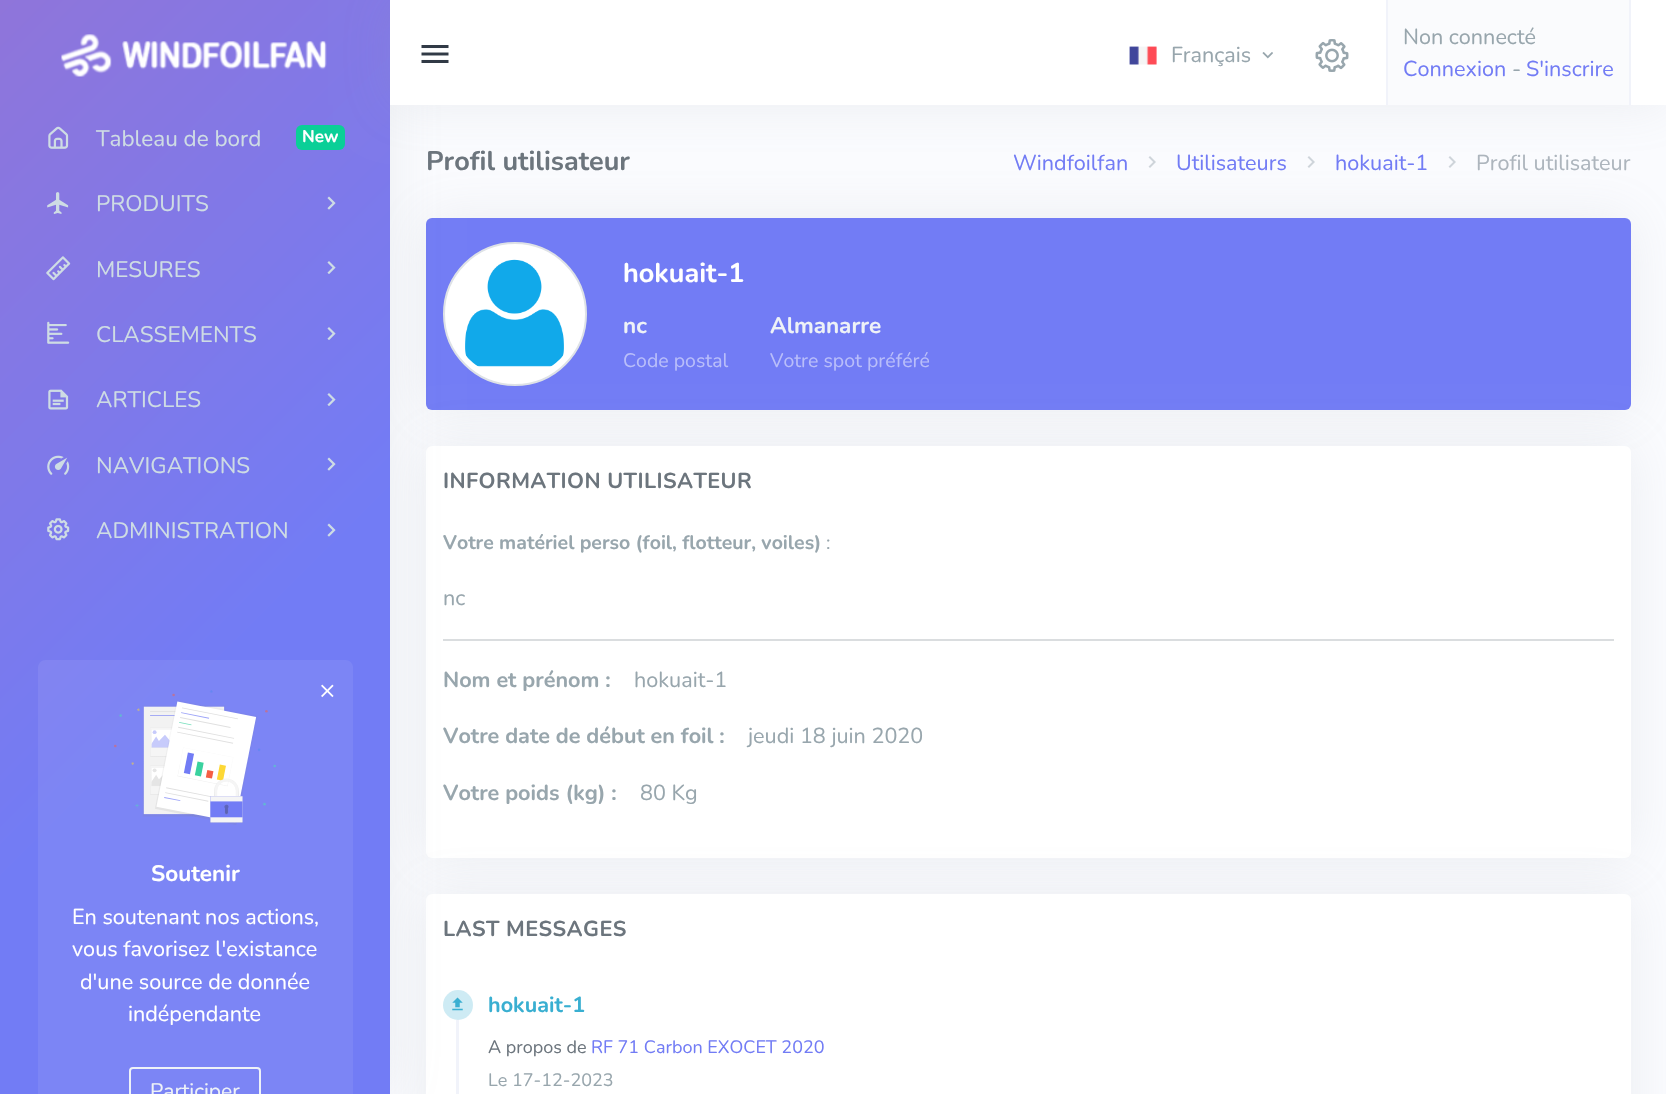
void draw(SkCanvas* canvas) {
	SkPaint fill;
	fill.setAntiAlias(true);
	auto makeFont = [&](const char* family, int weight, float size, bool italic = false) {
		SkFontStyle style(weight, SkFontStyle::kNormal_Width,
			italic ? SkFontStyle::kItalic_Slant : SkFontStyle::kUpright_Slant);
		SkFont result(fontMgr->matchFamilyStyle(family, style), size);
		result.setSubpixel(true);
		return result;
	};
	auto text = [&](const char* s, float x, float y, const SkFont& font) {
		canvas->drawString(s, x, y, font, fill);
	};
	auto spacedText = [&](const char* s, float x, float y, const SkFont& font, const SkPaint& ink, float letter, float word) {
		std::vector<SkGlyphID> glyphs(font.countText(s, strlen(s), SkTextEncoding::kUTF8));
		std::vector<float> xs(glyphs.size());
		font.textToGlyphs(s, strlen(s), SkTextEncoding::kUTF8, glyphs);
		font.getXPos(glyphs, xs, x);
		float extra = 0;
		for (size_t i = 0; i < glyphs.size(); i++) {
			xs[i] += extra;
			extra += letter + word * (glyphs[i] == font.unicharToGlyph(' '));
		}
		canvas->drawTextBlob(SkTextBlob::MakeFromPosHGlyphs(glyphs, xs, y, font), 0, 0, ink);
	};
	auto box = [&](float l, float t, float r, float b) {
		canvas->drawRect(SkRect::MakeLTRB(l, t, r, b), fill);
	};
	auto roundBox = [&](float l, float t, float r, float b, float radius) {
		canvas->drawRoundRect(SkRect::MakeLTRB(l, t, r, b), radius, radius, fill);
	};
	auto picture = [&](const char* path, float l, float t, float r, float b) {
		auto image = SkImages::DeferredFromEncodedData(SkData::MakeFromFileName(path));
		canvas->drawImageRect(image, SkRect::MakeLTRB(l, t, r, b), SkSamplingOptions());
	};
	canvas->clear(0xFFFAFBFE);
	picture("image20.png", 1148, 156, 1156, 168);
	picture("image20.png", 1307, 156, 1315, 168);
	picture("image20.png", 1448, 156, 1456, 168);
	fill.setColor(0x269AA1AB);
	fill.setMaskFilter(SkMaskFilter::MakeBlur(kNormal_SkBlurStyle, 26));
	canvas->drawRoundRect(SkRect::MakeLTRB(426, 218, 1631, 410), 6, 6, fill);
	fill.setMaskFilter(nullptr);
	fill.setColor(0xFF727CF5);
	roundBox(426, 218, 1631, 410, 6);
	fill.setColor(0xFFFFFFFF);
	canvas->drawCircle(515, 314, 71, fill);
	fill.setStyle(SkPaint::kStroke_Style);
	fill.setStrokeWidth(2);
	fill.setColor(0xFFDEE2E6);
	canvas->drawCircle(515, 314, 71, fill);
	picture("image21.png", 465, 259, 564, 367);
	fill.setStyle(SkPaint::kFill_Style);
	fill.setColor(0x269AA1AB);
	fill.setMaskFilter(SkMaskFilter::MakeBlur(kNormal_SkBlurStyle, 26));
	canvas->drawRoundRect(SkRect::MakeLTRB(426, 446, 1631, 858), 6, 6, fill);
	fill.setMaskFilter(nullptr);
	fill.setColor(0xFFFFFFFF);
	roundBox(426, 446, 1631, 858, 6);
	fill.setColor(0xFFDADDDF);
	box(443, 639, 1614, 641);
	fill.setColor(0x269AA1AB);
	fill.setMaskFilter(SkMaskFilter::MakeBlur(kNormal_SkBlurStyle, 26));
	canvas->drawRoundRect(SkRect::MakeLTRB(426, 894, 1631, 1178), 6, 6, fill);
	fill.setMaskFilter(nullptr);
	fill.setColor(0xFFFFFFFF);
	roundBox(426, 894, 1631, 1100, 6);
	fill.setColor(0xFFCEEBF4);
	canvas->drawCircle(458, 1005, 15, fill);
	picture("image22.png", 452, 997, 463, 1011);
	fill.setColor(0xFFF1F3FA);
	box(456, 1020, 459, 1094);
	fill.setColor(0x269AA1AB);
	fill.setMaskFilter(SkMaskFilter::MakeBlur(kNormal_SkBlurStyle, 26));
	canvas->drawRect(SkRect::MakeLTRB(0, 0, 390, 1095), fill);
	fill.setMaskFilter(nullptr);
	{
		const SkColor colors[] = {0xFF8F75DA, 0xFF727CF5};
		const float stops[] = {0, 0.6f};
		const SkPoint ends[] = {{-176, 176}, {566, 919}};
		fill.setShader(SkGradientShader::MakeLinear(ends, colors, stops, 2, SkTileMode::kClamp));
		fill.setAlpha(255);
	}
	box(0, 0, 390, 1094);
	picture("image0.png", 61, 34, 327, 77);
	picture("image1.png", 48, 126, 69, 149);
	fill.setShader(nullptr);
	fill.setColor(0xFF0ACF97);
	roundBox(296, 125, 345, 150, 6);
	picture("image2.png", 47, 192, 69, 214);
	picture("image3.png", 327, 196, 336, 210);
	picture("image4.png", 46, 256, 71, 281);
	picture("image5.png", 327, 261, 336, 274);
	picture("image6.png", 47, 321, 70, 344);
	picture("image7.png", 327, 327, 336, 340);
	picture("image8.png", 48, 389, 69, 410);
	picture("image9.png", 327, 393, 336, 406);
	picture("image10.png", 47, 455, 70, 475);
	picture("image11.png", 327, 457, 336, 471);
	picture("image12.png", 47, 518, 70, 541);
	picture("image13.png", 327, 523, 336, 537);
	fill.setColor(0x12FFFFFF);
	canvas->drawPath(SkPathBuilder().moveTo(46, 660).lineTo(345, 660).cubicTo(349.5f, 660, 353, 663.5f, 353, 668).lineTo(353, 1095).lineTo(38, 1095).lineTo(38, 668).cubicTo(38, 663.5f, 41.5f, 660, 46, 660).close().detach(), fill);
	picture("image14.png", 114, 690, 276, 825);
	picture("image15.png", 321, 684, 334, 698);
	fill.setStyle(SkPaint::kStroke_Style);
	fill.setColor(0xFFEEF2F7);
	canvas->drawRoundRect(SkRect::MakeLTRB(130, 1068, 260, 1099), 3, 3, fill);
	fill.setStyle(SkPaint::kFill_Style);
	fill.setColor(0x269AA1AB);
	fill.setMaskFilter(SkMaskFilter::MakeBlur(kNormal_SkBlurStyle, 26));
	canvas->drawRect(SkRect::MakeLTRB(390, 0, 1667, 105), fill);
	fill.setMaskFilter(nullptr);
	fill.setColor(0xFFFFFFFF);
	box(390, 0, 1666, 105);
	picture("image16.png", 421, 45, 449, 63);
	picture("image17.png", 1129, 46, 1157, 65);
	picture("image18.png", 1262, 52, 1273, 59);
	picture("image19.png", 1315, 39, 1349, 72);
	fill.setColor(0xFFFAFBFD);
	box(1388, 0, 1629, 105);
	fill.setColor(0xFFF1F3FA);
	box(1629, 0, 1631, 105);
	box(1386, 0, 1388, 105);
	auto font1 = makeFont("Nunito", 400, 22.5f);
	fill.setColor(0xFFCEDCE4);
	text("Tableau de bord", 96, 146, font1);
	auto font2 = makeFont("Nunito", 700, 17);
	fill.setColor(0xFFFFFFFF);
	text("New", 302, 142, font2);
	fill.setColor(0xFFCEDCE4);
	text("PRODUITS", 96, 211, font1);
	text("MESURES", 96, 277, font1);
	text("CLASSEMENTS", 96, 342, font1);
	text("ARTICLES", 96, 407, font1);
	text("NAVIGATIONS", 96, 473, font1);
	text("ADMINISTRATION", 96, 538, font1);
	auto font3 = makeFont("Nunito", 700, 22.5f);
	fill.setColor(0xFFFFFFFF);
	text("Soutenir", 151, 881, font3);
	auto font4 = makeFont("Nunito", 400, 21.6f);
	text("En soutenant nos actions,", 72, 924, font4);
	text("vous favorisez l'existance", 72, 956, font4);
	text("d'une source de donnée", 80, 989, font4);
	text("indépendante", 128, 1021, font4);
	auto font5 = makeFont("Nunito", 400, 21);
	fill.setColor(0xFFEEF2F7);
	text("Participer", 150, 1098, font5);
	fill.setColor(0xFF98A6AD);
	text("Français", 1171, 62, font4);
	text("Non connecté", 1403, 44, font4);
	fill.setColor(0xFF727CF5);
	text("Connexion", 1403, 76, font4);
	fill.setColor(0xFF98A6AD);
	text("-", 1512, 76, font4);
	fill.setColor(0xFF727CF5);
	text("S'inscrire", 1526, 76, font4);
	auto font6 = makeFont("Nunito", 700, 27);
	fill.setColor(0xFF6C757D);
	text("Profil utilisateur", 426, 170, font6);
	fill.setColor(0xFF727CF5);
	text("Windfoilfan", 1013, 170, font4);
	text("Utilisateurs", 1176, 170, font4);
	text("hokuait-1", 1335, 170, font4);
	fill.setColor(0xFFADB5BD);
	text("Profil utilisateur", 1476, 170, font4);
	fill.setColor(0xFFFFFFFF);
	text("hokuait-1", 623, 282, font6);
	fill.setColor(0xFFEEF2F7);
	text("nc", 623, 333, font3);
	auto font7 = makeFont("Nunito", 400, 19.5f);
	fill.setColor(0xFFB9BEFA);
	text("Code postal", 623, 367, font7);
	fill.setColor(0xFFEEF2F7);
	text("Almanarre", 770, 333, font3);
	fill.setColor(0xFFB9BEFA);
	text("Votre spot préféré", 770, 367, font7);
	auto font8 = makeFont("Nunito", 700, 21.6f);
	fill.setColor(0xFF6C757D);
	spacedText("INFORMATION UTILISATEUR", 443, 488, font8, fill, 0.4f, 0);
	auto font9 = makeFont("Nunito", 700, 19.5f);
	fill.setColor(0xFF98A6AD);
	text("Votre matériel perso (foil, flotteur, voiles)", 443, 549, font9);
	text(":", 826, 549, font7);
	text("nc", 443, 605, font4);
	text("Nom et prénom :", 443, 687, font8);
	text("hokuait-1", 634, 687, font4);
	text("Votre date de début en foil :", 443, 743, font8);
	text("jeudi 18 juin 2020", 748, 743, font4);
	text("Votre poids (kg) :", 443, 800, font8);
	text("80 Kg", 640, 800, font4);
	fill.setColor(0xFF6C757D);
	spacedText("LAST MESSAGES", 443, 936, font8, fill, 0.4f, 0);
	fill.setColor(0xFF39AFD1);
	text("hokuait-1", 488, 1012, font8);
	auto font10 = makeFont("Nunito", 400, 18);
	fill.setColor(0xFF6C757D);
	text("A propos de", 488, 1053, font10);
	fill.setColor(0xFF727CF5);
	text("RF 71 Carbon EXOCET 2020", 591, 1053, font10);
	fill.setColor(0xFF98A6AD);
	text("Le 17-12-2023", 488, 1086, font10);
}
